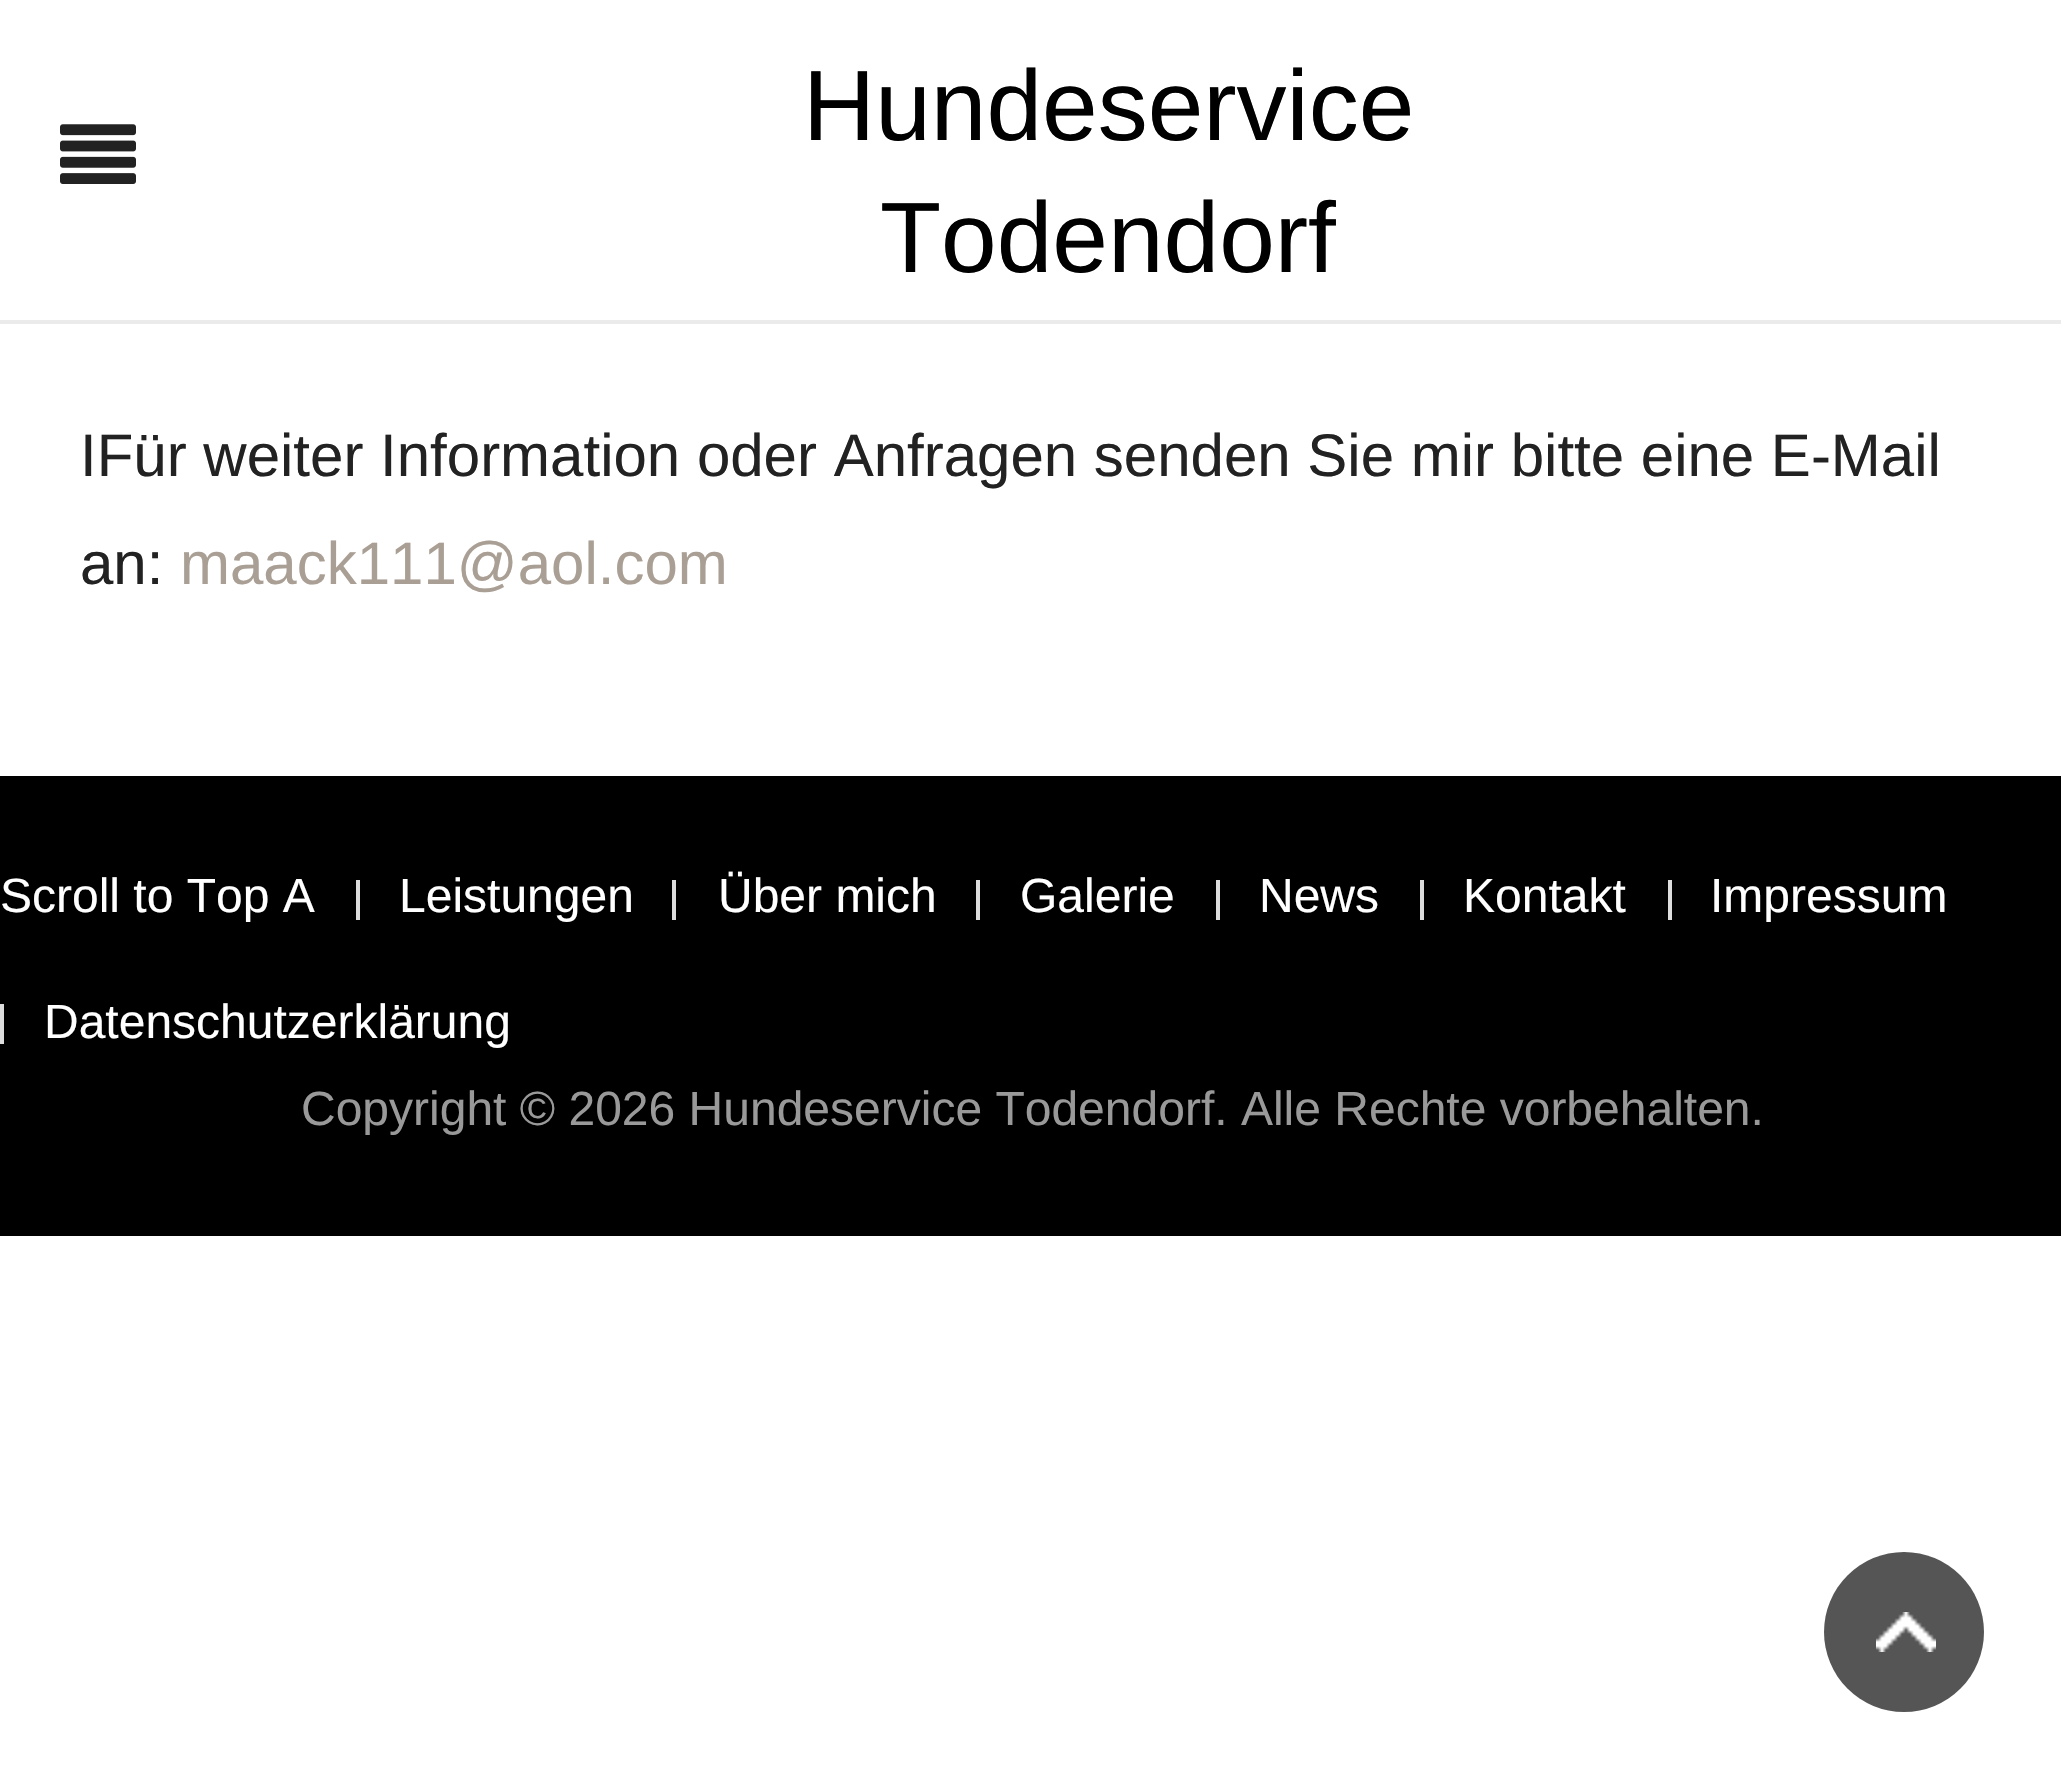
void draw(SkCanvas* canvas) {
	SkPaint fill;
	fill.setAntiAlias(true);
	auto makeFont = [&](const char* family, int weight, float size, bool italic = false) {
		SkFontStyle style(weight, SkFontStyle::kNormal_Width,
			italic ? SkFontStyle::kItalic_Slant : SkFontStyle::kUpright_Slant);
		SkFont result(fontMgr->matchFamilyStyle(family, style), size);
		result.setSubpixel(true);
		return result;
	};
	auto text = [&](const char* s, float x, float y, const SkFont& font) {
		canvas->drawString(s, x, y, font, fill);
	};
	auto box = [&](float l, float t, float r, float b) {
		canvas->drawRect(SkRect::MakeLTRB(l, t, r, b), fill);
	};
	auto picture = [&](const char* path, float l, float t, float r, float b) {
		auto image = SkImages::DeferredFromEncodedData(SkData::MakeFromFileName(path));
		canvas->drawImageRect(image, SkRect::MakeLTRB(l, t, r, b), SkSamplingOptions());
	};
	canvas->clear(0xFFFFFFFF);
	fill.setColor(0xFFEBEBEB);
	box(0, 320, 2061, 324);
	picture("image0.png", 60, 124, 136, 184);
	fill.setColor(0xFF000000);
	box(0, 776, 2061, 1236);
	fill.setColor(0xFFDDDDDD);
	box(356, 880, 360, 920);
	box(672, 880, 676, 920);
	box(976, 880, 980, 920);
	box(1216, 880, 1220, 920);
	box(1420, 880, 1424, 920);
	box(1668, 880, 1672, 920);
	box(0, 1004, 4, 1044);
	fill.setColor(0xFF555555);
	canvas->drawCircle(1904, 1632, 80, fill);
	picture("image1.png", 1876, 1612, 1936, 1652);
	auto font1 = makeFont("Liberation Sans", 400, 100);
	fill.setColor(0xFF000000);
	text("Hundeservice", 803, 140, font1);
	text("Todendorf", 880, 272, font1);
	auto font2 = makeFont("Liberation Sans", 400, 60);
	fill.setColor(0xFF222222);
	text("IFür weiter Information oder Anfragen senden Sie mir bitte eine E-Mail", 80, 476, font2);
	text("an:", 80, 584, font2);
	fill.setColor(0xFFAA9F94);
	text("maack111@aol.com", 180, 584, font2);
	auto font3 = makeFont("Liberation Sans", 400, 48);
	fill.setColor(0xFFFFFFFF);
	text("Scroll to Top A", 0, 912, font3);
	text("Leistungen", 399, 912, font3);
	text("Über mich", 718, 912, font3);
	text("Galerie", 1020, 912, font3);
	text("News", 1259, 912, font3);
	text("Kontakt", 1463, 912, font3);
	text("Impressum", 1710, 912, font3);
	text("Datenschutzerklärung", 44, 1038, font3);
	fill.setColor(0xFF999999);
	text("Copyright © 2026 Hundeservice Todendorf. Alle Rechte vorbehalten.", 301, 1125, font3);
}
